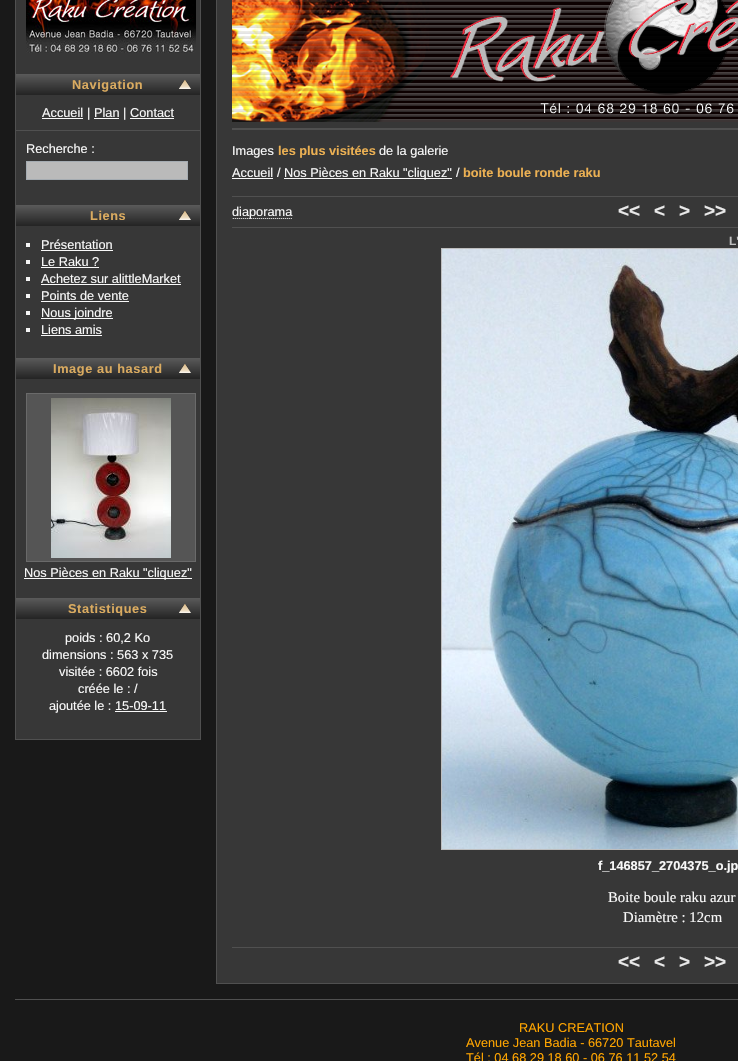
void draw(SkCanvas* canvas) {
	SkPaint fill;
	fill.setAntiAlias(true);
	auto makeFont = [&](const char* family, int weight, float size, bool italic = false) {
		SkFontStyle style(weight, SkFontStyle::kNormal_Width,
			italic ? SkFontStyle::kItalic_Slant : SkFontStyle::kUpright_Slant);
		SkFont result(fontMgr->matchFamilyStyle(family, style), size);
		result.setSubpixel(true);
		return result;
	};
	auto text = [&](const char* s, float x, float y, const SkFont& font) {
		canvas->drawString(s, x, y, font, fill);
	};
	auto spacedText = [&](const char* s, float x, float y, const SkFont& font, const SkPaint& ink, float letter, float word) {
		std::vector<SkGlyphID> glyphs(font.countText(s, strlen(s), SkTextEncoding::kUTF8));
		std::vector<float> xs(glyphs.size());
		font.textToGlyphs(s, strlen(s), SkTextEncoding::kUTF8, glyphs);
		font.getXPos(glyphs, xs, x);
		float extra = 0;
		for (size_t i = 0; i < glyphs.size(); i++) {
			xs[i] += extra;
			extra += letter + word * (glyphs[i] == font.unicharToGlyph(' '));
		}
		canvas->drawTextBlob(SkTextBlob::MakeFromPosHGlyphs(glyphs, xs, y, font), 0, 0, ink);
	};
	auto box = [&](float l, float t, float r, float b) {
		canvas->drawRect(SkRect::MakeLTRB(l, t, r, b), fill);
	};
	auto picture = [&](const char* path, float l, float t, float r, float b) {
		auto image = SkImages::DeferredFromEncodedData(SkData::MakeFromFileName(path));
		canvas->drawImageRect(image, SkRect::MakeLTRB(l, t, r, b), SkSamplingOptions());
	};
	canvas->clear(0xFF191919);
	fill.setColor(0xFF373737);
	canvas->drawRect(SkRect::MakeLTRB(15.5f, -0.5f, 200.5f, 739.5f), fill);
	fill.setStyle(SkPaint::kStroke_Style);
	fill.setStrokeWidth(1);
	fill.setColor(0xFF505050);
	canvas->drawRect(SkRect::MakeLTRB(15.5f, -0.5f, 200.5f, 739.5f), fill);
	picture("image0.png", 26, 0, 196, 53);
	picture("image1.png", 16, 74, 200, 95);
	picture("image2.png", 179, 80, 191, 89);
	fill.setStyle(SkPaint::kFill_Style);
	box(16, 130, 200, 131);
	fill.setColor(0xFFF9F9F9);
	box(42, 118, 83, 119);
	box(94, 118, 119, 119);
	box(130, 118, 174, 119);
	fill.setColor(0xFFBABABA);
	canvas->drawRect(SkRect::MakeLTRB(26.5f, 161.5f, 187.5f, 179.5f), fill);
	fill.setStyle(SkPaint::kStroke_Style);
	fill.setColor(0xFFA5ACB2);
	canvas->drawRect(SkRect::MakeLTRB(26.5f, 161.5f, 187.5f, 179.5f), fill);
	picture("image1.png", 16, 205, 200, 226);
	picture("image2.png", 179, 211, 191, 220);
	fill.setStyle(SkPaint::kFill_Style);
	fill.setColor(0xFFF5F5F5);
	box(26, 243, 30, 247);
	fill.setColor(0xFFF9F9F9);
	box(41, 250, 113, 251);
	fill.setColor(0xFFF5F5F5);
	box(26, 260, 30, 264);
	fill.setColor(0xFFF9F9F9);
	box(41, 267, 99, 268);
	fill.setColor(0xFFF5F5F5);
	box(26, 277, 30, 281);
	fill.setColor(0xFFF9F9F9);
	box(41, 284, 181, 285);
	fill.setColor(0xFFF5F5F5);
	box(26, 294, 30, 298);
	fill.setColor(0xFFF9F9F9);
	box(41, 301, 129, 302);
	fill.setColor(0xFFF5F5F5);
	box(26, 311, 30, 315);
	fill.setColor(0xFFF9F9F9);
	box(41, 318, 113, 319);
	fill.setColor(0xFFF5F5F5);
	box(26, 328, 30, 332);
	fill.setColor(0xFFF9F9F9);
	box(41, 335, 102, 336);
	picture("image1.png", 16, 358, 200, 379);
	picture("image2.png", 179, 364, 191, 373);
	fill.setColor(0xFF555555);
	canvas->drawRect(SkRect::MakeLTRB(26.5f, 393.5f, 195.5f, 561.5f), fill);
	fill.setStyle(SkPaint::kStroke_Style);
	fill.setColor(0xFF6A6A6A);
	canvas->drawRect(SkRect::MakeLTRB(26.5f, 393.5f, 195.5f, 561.5f), fill);
	picture("image3.png", 51, 398, 171, 558);
	fill.setStyle(SkPaint::kFill_Style);
	fill.setColor(0xFFF9F9F9);
	box(24, 578, 192, 579);
	picture("image1.png", 16, 598, 200, 619);
	picture("image2.png", 179, 604, 191, 613);
	box(115, 711, 167, 712);
	fill.setColor(0xFF373737);
	canvas->drawRect(SkRect::MakeLTRB(216.5f, -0.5f, 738.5f, 983.5f), fill);
	fill.setStyle(SkPaint::kStroke_Style);
	fill.setColor(0xFF505050);
	canvas->drawRect(SkRect::MakeLTRB(216.5f, -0.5f, 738.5f, 983.5f), fill);
	fill.setStyle(SkPaint::kFill_Style);
	box(232, 128, 738, 130);
	picture("image4.png", 232, 0, 738, 122);
	box(232, 196, 738, 197);
	fill.setColor(0xFFF9F9F9);
	box(232, 178, 273, 179);
	box(284, 178, 452, 179);
	fill.setColor(0xFF505050);
	box(232, 227, 738, 228);
	picture("image5.png", 232, 218, 292, 219);
	fill.setStyle(SkPaint::kStroke_Style);
	fill.setColor(0xFFBEBEBE);
	canvas->drawRect(SkRect::MakeLTRB(441.5f, 248.5f, 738.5f, 849.5f), fill);
	picture("image6.png", 442, 249, 738, 849);
	fill.setStyle(SkPaint::kFill_Style);
	fill.setColor(0xFF505050);
	box(232, 947, 738, 948);
	box(15, 999, 738, 1000);
	auto font1 = makeFont("Liberation Sans", 700, 12.75f);
	fill.setColor(0xFFDAAB60);
	spacedText("Navigation", 72, 89, font1, fill, 0.6f, 0);
	auto font2 = makeFont("Liberation Sans", 400, 12.75f);
	fill.setColor(0xFFF9F9F9);
	text("Accueil", 42, 117, font2);
	text("|", 87, 117, font2);
	text("Plan", 94, 117, font2);
	text("|", 123, 117, font2);
	text("Contact", 130, 117, font2);
	text("Recherche :", 26, 153, font2);
	fill.setColor(0xFFDAAB60);
	spacedText("Liens", 90, 220, font1, fill, 0.6f, 0);
	fill.setColor(0xFFF9F9F9);
	text("Présentation", 41, 249, font2);
	text("Le Raku ?", 41, 266, font2);
	text("Achetez sur alittleMarket", 41, 283, font2);
	text("Points de vente", 41, 300, font2);
	text("Nous joindre", 41, 317, font2);
	text("Liens amis", 41, 334, font2);
	fill.setColor(0xFFDAAB60);
	spacedText("Image au hasard", 53, 373, font1, fill, 0.6f, 0);
	fill.setColor(0xFFF9F9F9);
	text("Nos Pièces en Raku \"cliquez\"", 24, 577, font2);
	fill.setColor(0xFFDAAB60);
	spacedText("Statistiques", 68, 613, font1, fill, 0.6f, 0);
	fill.setColor(0xFFF9F9F9);
	text("poids : 60,2 Ko", 65, 642, font2);
	text("dimensions : 563 x 735", 42, 659, font2);
	text("visitée : 6602 fois", 59, 676, font2);
	text("créée le : /", 78, 693, font2);
	text("ajoutée le :", 49, 710, font2);
	text("15-09-11", 115, 710, font2);
	text("Images", 232, 155, font2);
	fill.setColor(0xFFEBB053);
	text("les plus visitées", 278, 155, font1);
	fill.setColor(0xFFF9F9F9);
	text("de la galerie", 379, 155, font2);
	text("Accueil", 232, 177, font2);
	text("/", 277, 177, font2);
	text("Nos Pièces en Raku \"cliquez\"", 284, 177, font2);
	text("/", 456, 177, font2);
	fill.setColor(0xFFEBB053);
	text("boite boule ronde raku", 463, 177, font1);
	fill.setColor(0xFFF9F9F9);
	text("diaporama", 232, 216, font2);
	auto font3 = makeFont("Liberation Sans", 700, 19);
	fill.setColor(0xFFE9E9E9);
	text("<<", 618, 217, font3);
	text("<", 654, 217, font3);
	text(">", 679, 217, font3);
	text(">>", 704, 217, font3);
	auto font4 = makeFont("Liberation Sans", 700, 12);
	fill.setColor(0xFFBEBEBE);
	text("L'", 729, 245, font4);
	fill.setColor(0xFFF9F9F9);
	text("f_146857_2704375_o.jp", 598, 870, font1);
	auto font5 = makeFont("Liberation Serif", 400, 14.75f);
	text("Boite boule raku azur", 608, 902, font5);
	text("Diamètre : 12cm", 623, 922, font5);
	fill.setColor(0xFFE9E9E9);
	text("<<", 618, 968, font3);
	text("<", 654, 968, font3);
	text(">", 679, 968, font3);
	text(">>", 704, 968, font3);
	fill.setColor(0xFFFFA500);
	text("RAKU CREATION", 519, 1032, font2);
	text("Avenue Jean Badia - 66720 Tautavel", 466, 1047, font2);
	text("Tél : 04 68 29 18 60 - 06 76 11 52 54", 466, 1062, font2);
}
